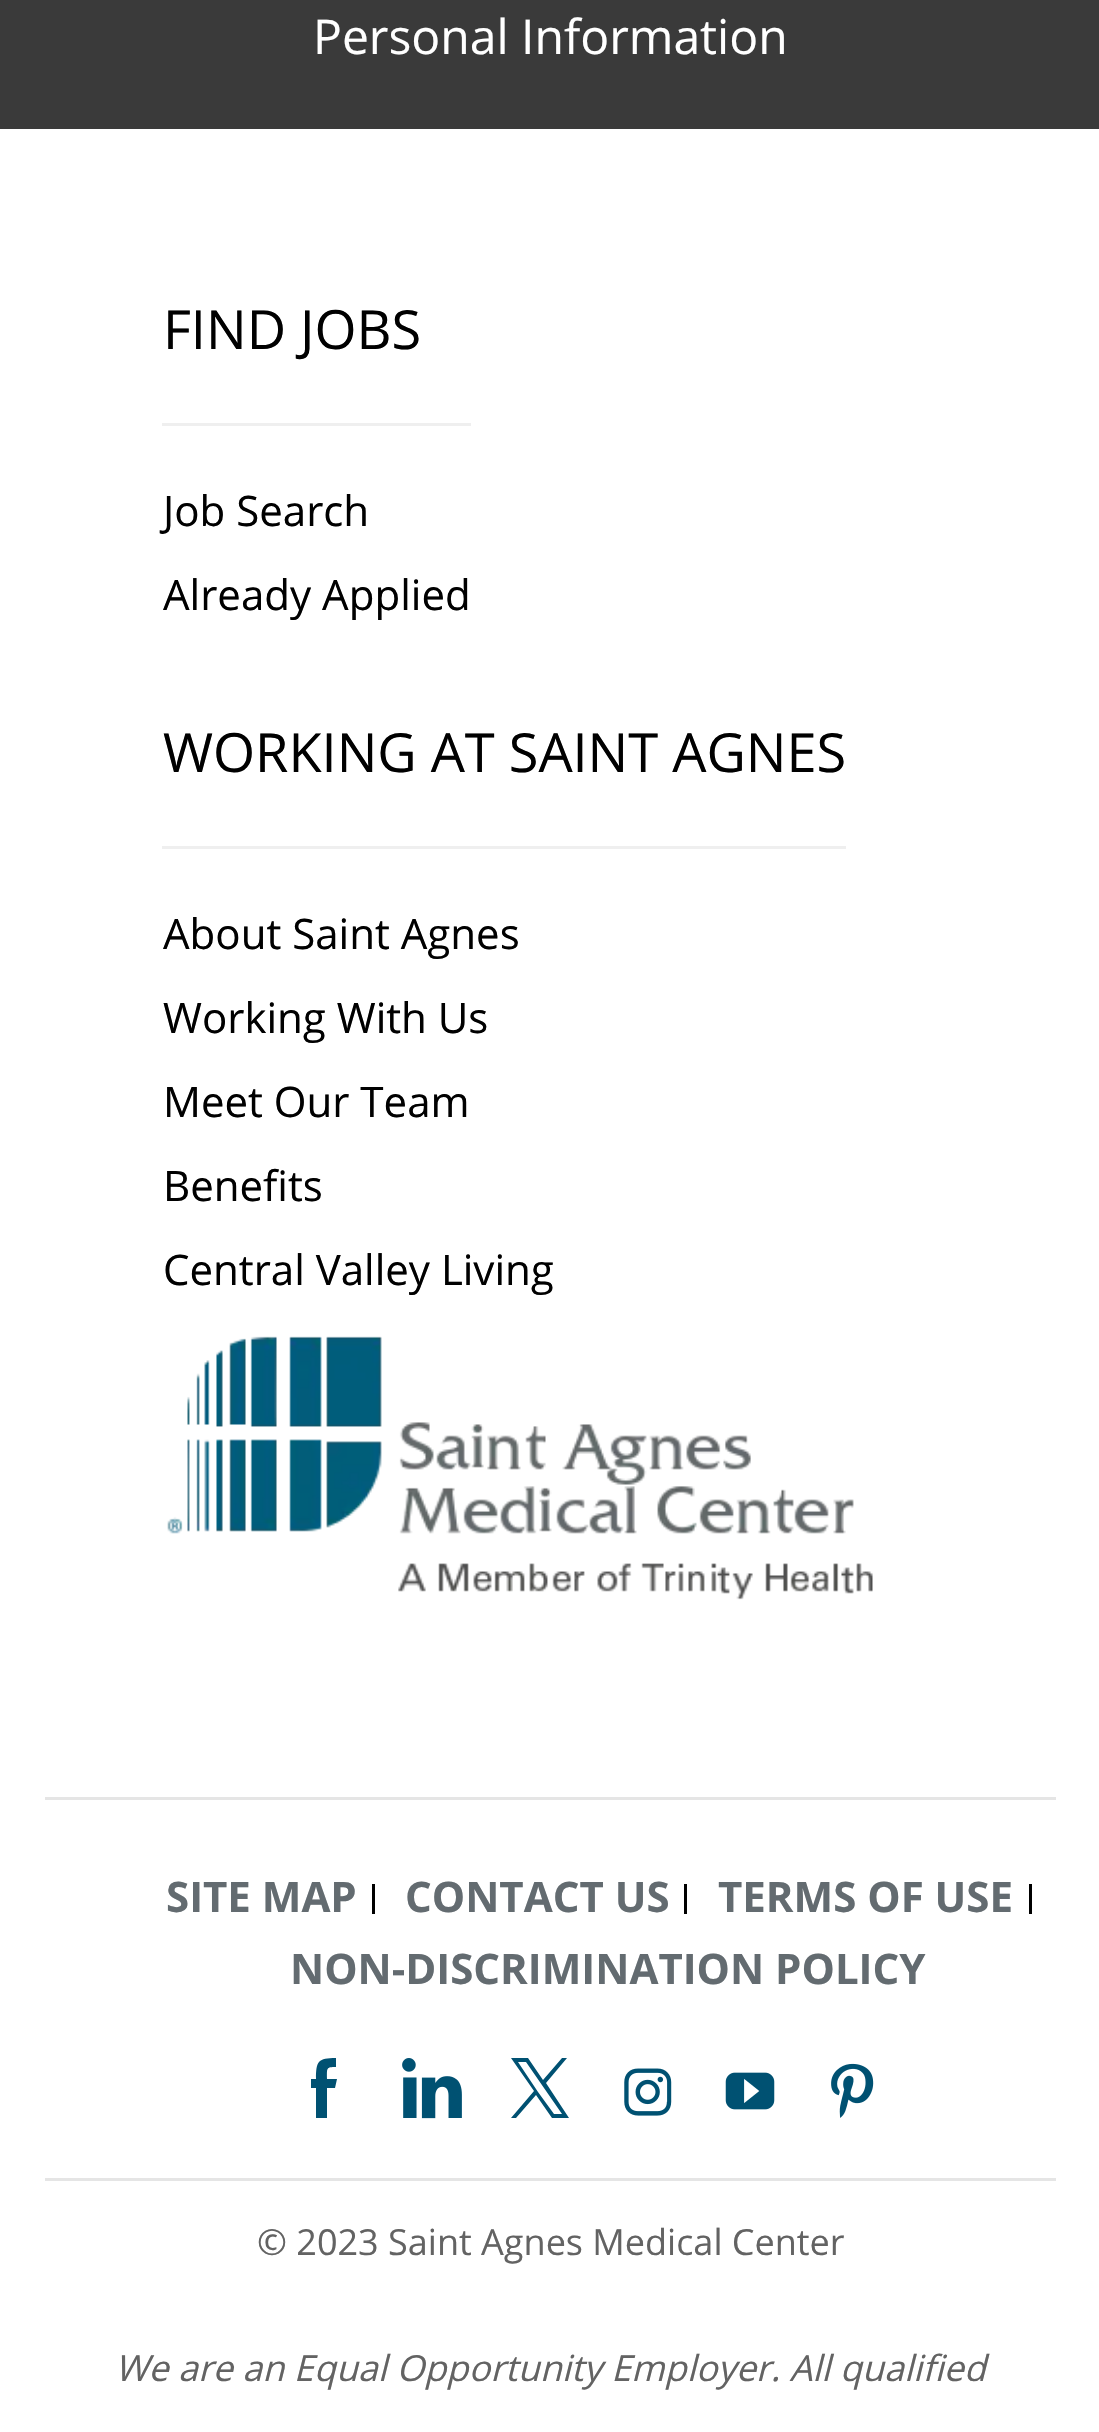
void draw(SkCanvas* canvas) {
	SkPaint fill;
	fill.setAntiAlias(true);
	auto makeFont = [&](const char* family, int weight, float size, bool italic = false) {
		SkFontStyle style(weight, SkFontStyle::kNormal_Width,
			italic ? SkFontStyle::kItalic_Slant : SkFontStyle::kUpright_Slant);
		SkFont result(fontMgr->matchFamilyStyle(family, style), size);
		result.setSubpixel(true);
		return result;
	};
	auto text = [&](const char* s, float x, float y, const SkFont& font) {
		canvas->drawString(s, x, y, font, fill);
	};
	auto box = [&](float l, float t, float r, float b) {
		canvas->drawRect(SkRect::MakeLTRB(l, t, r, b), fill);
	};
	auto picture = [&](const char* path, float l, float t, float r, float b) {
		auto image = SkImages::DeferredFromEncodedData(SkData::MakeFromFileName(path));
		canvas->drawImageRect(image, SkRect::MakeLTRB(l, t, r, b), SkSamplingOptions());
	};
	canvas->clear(0xFFFFFFFF);
	fill.setColor(0xFF3A3A3A);
	box(0, 0, 1099, 129);
	fill.setColor(0xFFEFEFEF);
	box(162, 423, 471, 426);
	box(162, 846, 846, 849);
	picture("image0.png", 167, 1336, 873, 1600);
	fill.setColor(0xFFE5E5E5);
	box(45, 1797, 1056, 1800);
	fill.setColor(0xFF000000);
	box(372, 1884, 375, 1914);
	box(684, 1884, 687, 1914);
	box(1029, 1884, 1032, 1914);
	fill.setColor(0xFF005172);
	canvas->drawPath(SkPathBuilder().moveTo(316, 2118).lineTo(327, 2118).lineTo(327, 2088).lineTo(335, 2088).lineTo(337, 2079).lineTo(327, 2079).cubicTo(327, 2068, 326, 2067, 336, 2067).lineTo(336, 2058).cubicTo(318, 2058, 316, 2061, 316, 2079).lineTo(311, 2079).lineTo(311, 2088).lineTo(316, 2088).close().detach(), fill);
	picture("image1.png", 402, 2058, 462, 2119);
	canvas->drawPath(SkPathBuilder().moveTo(546, 2083).lineTo(567, 2058).lineTo(562, 2058).lineTo(543, 2080).lineTo(528, 2058).lineTo(511, 2058).lineTo(534, 2091).lineTo(511, 2118).lineTo(516, 2118).lineTo(536, 2095).lineTo(552, 2118).lineTo(569, 2118).close().moveTo(538, 2092).lineTo(518, 2062).lineTo(526, 2062).lineTo(562, 2114).lineTo(554, 2114).close().detach(), fill);
	picture("image2.png", 624, 2068, 672, 2116);
	picture("image3.png", 725, 2072, 775, 2110);
	picture("image4.png", 831, 2063, 874, 2118);
	fill.setColor(0xFFE5E5E5);
	box(45, 2178, 1056, 2181);
	auto font1 = makeFont("Open Sans", 400, 48);
	fill.setColor(0xFFFFFFFF);
	text("Personal Information", 313, 54, font1);
	auto font2 = makeFont("Open Sans", 400, 54);
	fill.setColor(0xFF000000);
	text("FIND JOBS", 163, 349, font2);
	auto font3 = makeFont("Open Sans", 400, 42);
	text("Job Search", 163, 526, font3);
	text("Already Applied", 163, 610, font3);
	text("WORKING AT SAINT AGNES", 163, 772, font2);
	text("About Saint Agnes", 163, 949, font3);
	text("Working With Us", 163, 1033, font3);
	text("Meet Our Team", 163, 1117, font3);
	text("Benefits", 163, 1201, font3);
	text("Central Valley Living", 163, 1285, font3);
	auto font4 = makeFont("Open Sans", 700, 42);
	fill.setColor(0xFF636B70);
	text("SITE MAP", 166, 1912, font4);
	text("CONTACT US", 405, 1912, font4);
	text("TERMS OF USE", 718, 1912, font4);
	text("NON-DISCRIMINATION POLICY", 290, 1984, font4);
	auto font5 = makeFont("Open Sans", 400, 36);
	fill.setColor(0xFF636363);
	text("© 2023 Saint Agnes Medical Center", 257, 2255, font5);
	auto font6 = makeFont("Open Sans", 400, 36, true);
	text("We are an Equal Opportunity Employer. All qualified", 115, 2381, font6);
}
